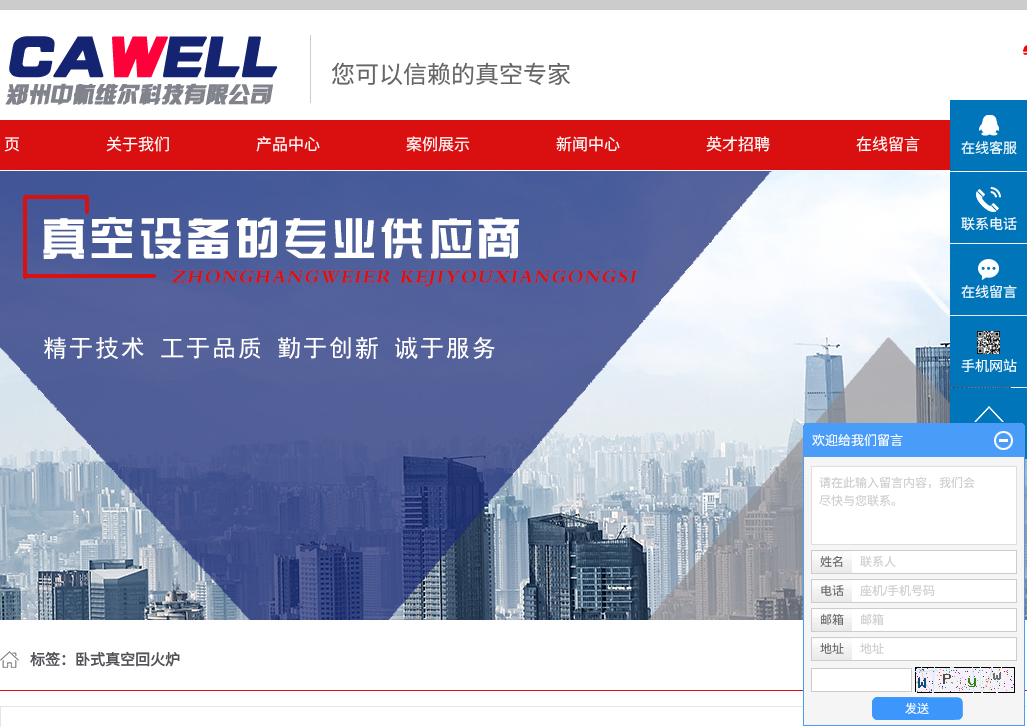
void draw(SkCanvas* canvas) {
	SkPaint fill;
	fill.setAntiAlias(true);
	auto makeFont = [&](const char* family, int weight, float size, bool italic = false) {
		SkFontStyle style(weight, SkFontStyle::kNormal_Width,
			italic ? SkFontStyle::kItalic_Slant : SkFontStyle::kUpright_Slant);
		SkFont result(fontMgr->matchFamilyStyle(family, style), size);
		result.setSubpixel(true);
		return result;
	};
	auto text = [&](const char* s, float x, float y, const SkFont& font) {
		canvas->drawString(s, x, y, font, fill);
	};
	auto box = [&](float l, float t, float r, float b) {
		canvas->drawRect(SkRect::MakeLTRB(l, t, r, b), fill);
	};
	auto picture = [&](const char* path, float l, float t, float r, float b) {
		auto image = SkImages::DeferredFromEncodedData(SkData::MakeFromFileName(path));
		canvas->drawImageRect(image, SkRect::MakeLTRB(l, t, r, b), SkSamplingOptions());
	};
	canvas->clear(0xFFFFFFFF);
	fill.setColor(0xFFCCCCCC);
	box(0, 0, 1027, 10);
	picture("image0.png", 5, 32, 278, 106);
	picture("image1.png", 1023, 45, 1027, 55);
	box(310, 35, 311, 103);
	fill.setColor(0xFFDA1010);
	box(0, 120, 950, 170);
	fill.setColor(0xFF0075B9);
	box(950, 100, 1027, 171);
	picture("image2.png", 979, 115, 999, 136);
	picture("image7.png", 0, 171, 1027, 620);
	box(950, 172, 1027, 243);
	picture("image3.png", 976, 187, 1001, 212);
	box(950, 244, 1027, 315);
	picture("image4.png", 978, 259, 999, 280);
	box(950, 316, 1027, 387);
	picture("image5.png", 977, 331, 1000, 354);
	box(950, 388, 1027, 459);
	picture("image6.png", 974, 406, 1004, 422);
	fill.setColor(0xFFDA1010);
	box(0, 690, 1027, 691);
	picture("image8.png", 0, 651, 19, 668);
	fill.setStyle(SkPaint::kStroke_Style);
	fill.setStrokeWidth(1);
	fill.setColor(0xFFE5E5E5);
	canvas->drawRect(SkRect::MakeLTRB(0.5f, 706.5f, 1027.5f, 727.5f), fill);
	fill.setStyle(SkPaint::kFill_Style);
	fill.setColor(0xFF4A9CF9);
	box(805, 423, 1023, 424);
	box(804, 424, 1024, 425);
	box(803, 425, 1025, 456);
	picture("image9.png", 994, 431, 1013, 450);
	fill.setColor(0xFFF5F5F5);
	canvas->drawRect(SkRect::MakeLTRB(803.5f, 456.5f, 1024.5f, 725.5f), fill);
	fill.setStyle(SkPaint::kStroke_Style);
	fill.setColor(0xFF4A9CF9);
	canvas->drawRect(SkRect::MakeLTRB(803.5f, 456.5f, 1024.5f, 725.5f), fill);
	fill.setStyle(SkPaint::kFill_Style);
	fill.setColor(0xFFFFFFFF);
	canvas->drawRect(SkRect::MakeLTRB(811.5f, 466.5f, 1016.5f, 544.5f), fill);
	fill.setStyle(SkPaint::kStroke_Style);
	fill.setColor(0xFFDEDEDE);
	canvas->drawRect(SkRect::MakeLTRB(811.5f, 466.5f, 1016.5f, 544.5f), fill);
	fill.setStyle(SkPaint::kFill_Style);
	fill.setColor(0xFFFFFFFF);
	box(852, 551, 1016, 573);
	fill.setStyle(SkPaint::kStroke_Style);
	fill.setColor(0xFFCCCCCC);
	canvas->drawRect(SkRect::MakeLTRB(811.5f, 550.5f, 1016.5f, 573.5f), fill);
	picture("image10.png", 812, 551, 852, 573);
	fill.setStyle(SkPaint::kFill_Style);
	fill.setColor(0xFFFFFFFF);
	box(852, 580, 1016, 602);
	fill.setStyle(SkPaint::kStroke_Style);
	fill.setColor(0xFFCCCCCC);
	canvas->drawRect(SkRect::MakeLTRB(811.5f, 579.5f, 1016.5f, 602.5f), fill);
	picture("image10.png", 812, 580, 852, 602);
	fill.setStyle(SkPaint::kFill_Style);
	fill.setColor(0xFFFFFFFF);
	box(852, 609, 1016, 631);
	fill.setStyle(SkPaint::kStroke_Style);
	fill.setColor(0xFFCCCCCC);
	canvas->drawRect(SkRect::MakeLTRB(811.5f, 608.5f, 1016.5f, 631.5f), fill);
	picture("image10.png", 812, 609, 852, 631);
	fill.setStyle(SkPaint::kFill_Style);
	fill.setColor(0xFFFFFFFF);
	box(852, 638, 1016, 660);
	fill.setStyle(SkPaint::kStroke_Style);
	fill.setColor(0xFFCCCCCC);
	canvas->drawRect(SkRect::MakeLTRB(811.5f, 637.5f, 1016.5f, 660.5f), fill);
	picture("image10.png", 812, 638, 852, 660);
	fill.setStyle(SkPaint::kFill_Style);
	fill.setColor(0xFFFFFFFF);
	canvas->drawRect(SkRect::MakeLTRB(811.5f, 668.5f, 911.5f, 691.5f), fill);
	fill.setStyle(SkPaint::kStroke_Style);
	fill.setColor(0xFFCCCCCC);
	canvas->drawRect(SkRect::MakeLTRB(811.5f, 668.5f, 911.5f, 691.5f), fill);
	picture("image11.png", 915, 667, 1015, 693);
	picture("image12.png", 872, 697, 963, 721);
	auto font1 = makeFont("Noto Sans CJK SC", 400, 24);
	fill.setStyle(SkPaint::kFill_Style);
	fill.setColor(0xFF666666);
	text("您可以信赖的真空专家", 331, 83, font1);
	auto font2 = makeFont("Noto Sans CJK SC", 400, 16);
	fill.setColor(0xFFFFFFFF);
	text("页", 4, 150, font2);
	text("关于我们", 106, 150, font2);
	text("产品中心", 256, 150, font2);
	text("案例展示", 406, 150, font2);
	text("新闻中心", 556, 150, font2);
	text("英才招聘", 706, 150, font2);
	text("在线留言", 856, 150, font2);
	auto font3 = makeFont("Noto Sans CJK SC", 400, 14);
	text("在线客服", 961, 153, font3);
	text("联系电话", 961, 229, font3);
	text("在线留言", 961, 297, font3);
	text("手机网站", 961, 371, font3);
	auto font4 = makeFont("Noto Sans CJK SC", 700, 15);
	fill.setColor(0xFF515357);
	text("标签：卧式真空回火炉", 30, 665, font4);
	auto font5 = makeFont("Noto Sans CJK SC", 400, 13);
	fill.setColor(0xFFFFFFFF);
	text("欢迎给我们留言", 812, 445, font5);
	auto font6 = makeFont("Noto Sans CJK SC", 400, 12);
	fill.setColor(0xFFCCCCCC);
	text("请在此输入留言内容，我们会", 819, 487, font6);
	text("尽快与您联系。", 819, 505, font6);
	fill.setColor(0xFF666666);
	text("姓名", 820, 566, font6);
	fill.setColor(0xFFCCCCCC);
	text("联系人", 860, 566, font6);
	fill.setColor(0xFF666666);
	text("电话", 820, 595, font6);
	fill.setColor(0xFFCCCCCC);
	text("座机", 860, 595, font6);
	auto font7 = makeFont("Liberation Sans", 400, 12);
	text("/", 884, 595, font7);
	text("手机号码", 887, 595, font6);
	fill.setColor(0xFF666666);
	text("邮箱", 820, 624, font6);
	fill.setColor(0xFFCCCCCC);
	text("邮箱", 860, 624, font6);
	fill.setColor(0xFF666666);
	text("地址", 820, 653, font6);
	fill.setColor(0xFFCCCCCC);
	text("地址", 860, 653, font6);
	fill.setColor(0xFFFFFFFF);
	text("发送", 905, 713, font6);
}
